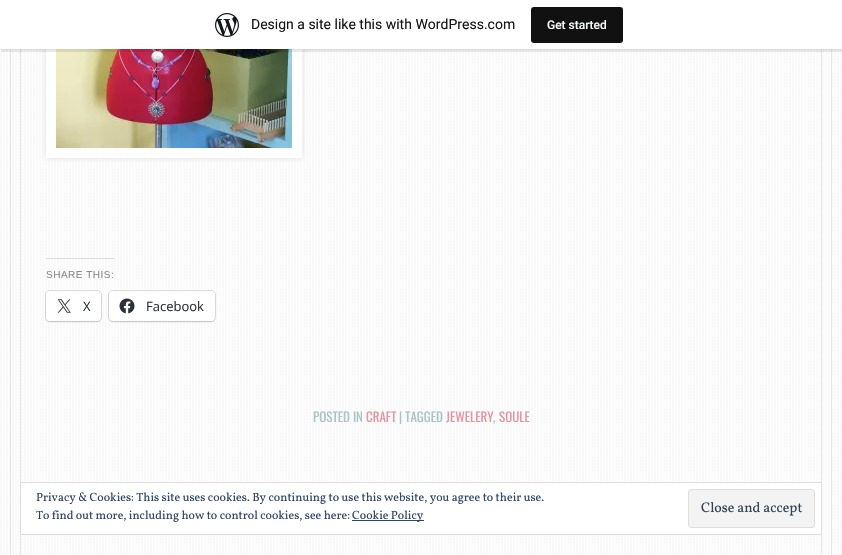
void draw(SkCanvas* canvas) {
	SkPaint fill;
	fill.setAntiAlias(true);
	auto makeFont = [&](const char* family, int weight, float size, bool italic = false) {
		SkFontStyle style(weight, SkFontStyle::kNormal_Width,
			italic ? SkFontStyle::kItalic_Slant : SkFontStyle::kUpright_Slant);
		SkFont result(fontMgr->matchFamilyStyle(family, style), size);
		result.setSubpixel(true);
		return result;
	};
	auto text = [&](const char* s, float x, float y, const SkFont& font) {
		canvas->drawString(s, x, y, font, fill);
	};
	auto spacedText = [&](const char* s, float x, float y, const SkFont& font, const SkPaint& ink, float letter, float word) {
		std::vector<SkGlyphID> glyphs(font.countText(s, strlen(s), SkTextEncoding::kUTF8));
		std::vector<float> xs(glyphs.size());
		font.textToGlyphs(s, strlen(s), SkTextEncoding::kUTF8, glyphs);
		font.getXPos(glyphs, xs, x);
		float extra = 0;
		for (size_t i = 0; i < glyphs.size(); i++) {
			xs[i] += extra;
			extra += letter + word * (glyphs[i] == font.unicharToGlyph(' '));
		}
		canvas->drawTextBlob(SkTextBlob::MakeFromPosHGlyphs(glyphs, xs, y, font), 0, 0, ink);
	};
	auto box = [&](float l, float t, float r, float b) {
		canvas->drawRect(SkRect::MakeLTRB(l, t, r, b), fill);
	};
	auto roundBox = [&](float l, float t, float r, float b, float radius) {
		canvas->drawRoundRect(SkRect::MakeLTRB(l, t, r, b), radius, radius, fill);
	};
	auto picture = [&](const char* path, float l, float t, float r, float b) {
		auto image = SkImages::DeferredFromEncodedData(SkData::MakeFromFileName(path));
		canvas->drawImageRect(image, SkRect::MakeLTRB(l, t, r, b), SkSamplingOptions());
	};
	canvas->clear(0xFFFFFFFF);
	picture("image1.png", 0, 49, 842, 555);
	fill.setStyle(SkPaint::kStroke_Style);
	fill.setStrokeWidth(1);
	fill.setColor(0xFFE6E6E6);
	canvas->drawRect(SkRect::MakeLTRB(10.5f, -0.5f, 831.5f, 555.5f), fill);
	canvas->drawRect(SkRect::MakeLTRB(20.5f, -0.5f, 821.5f, 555.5f), fill);
	fill.setStyle(SkPaint::kFill_Style);
	fill.setColor(0x1A000000);
	fill.setMaskFilter(SkMaskFilter::MakeBlur(kNormal_SkBlurStyle, 3));
	canvas->drawRect(SkRect::MakeLTRB(46, -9, 302, 158), fill);
	fill.setMaskFilter(nullptr);
	fill.setColor(0xFFFFFFFF);
	box(46, 49, 302, 158);
	picture("image2.png", 56, 49, 292, 148);
	fill.setColor(0x0D000000);
	fill.setMaskFilter(SkMaskFilter::MakeBlur(kNormal_SkBlurStyle, 1));
	canvas->drawRect(SkRect::MakeLTRB(0, 1, 842, 50), fill);
	fill.setMaskFilter(nullptr);
	fill.setColor(0x14000000);
	canvas->drawPath(SkPathBuilder().moveTo(1, 49).lineTo(1, 52).lineTo(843, 52).lineTo(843, 3).lineTo(842, 3).lineTo(842, 49).close().detach(), fill);
	fill.setColor(0xFFFFFFFF);
	box(0, 0, 842, 49);
	picture("image0.png", 215, 13, 239, 37);
	fill.setColor(0xFF111111);
	roundBox(531, 7, 623, 43, 3);
	fill.setColor(0xFFDCDCDE);
	box(46, 258, 115, 259);
	fill.setStyle(SkPaint::kStroke_Style);
	fill.setColor(0x1F000000);
	canvas->drawRoundRect(SkRect::MakeLTRB(45.5f, 290.5f, 101.5f, 321.5f), 4.5f, 4.5f, fill);
	fill.setStyle(SkPaint::kFill_Style);
	fill.setMaskFilter(SkMaskFilter::MakeBlur(kNormal_SkBlurStyle, 1));
	canvas->drawRoundRect(SkRect::MakeLTRB(46, 292, 101, 322), 4, 4, fill);
	fill.setMaskFilter(nullptr);
	fill.setColor(0xFFFFFFFF);
	roundBox(46, 291, 101, 321, 4);
	picture("image3.png", 57, 299, 71, 313);
	fill.setStyle(SkPaint::kStroke_Style);
	fill.setColor(0x1F000000);
	canvas->drawRoundRect(SkRect::MakeLTRB(108.5f, 290.5f, 215.5f, 321.5f), 4.5f, 4.5f, fill);
	fill.setStyle(SkPaint::kFill_Style);
	fill.setMaskFilter(SkMaskFilter::MakeBlur(kNormal_SkBlurStyle, 1));
	canvas->drawRoundRect(SkRect::MakeLTRB(109, 292, 215, 322), 4, 4, fill);
	fill.setMaskFilter(nullptr);
	fill.setColor(0xFFFFFFFF);
	roundBox(109, 291, 215, 321, 4);
	picture("image4.png", 119, 298, 135, 314);
	canvas->drawRect(SkRect::MakeLTRB(20.5f, 482.5f, 821.5f, 534.5f), fill);
	fill.setStyle(SkPaint::kStroke_Style);
	fill.setColor(0xFFDEDEDE);
	canvas->drawRect(SkRect::MakeLTRB(20.5f, 482.5f, 821.5f, 534.5f), fill);
	fill.setStyle(SkPaint::kFill_Style);
	fill.setColor(0xFF2E4467);
	box(352, 520, 424, 521);
	fill.setColor(0xFFF3F3F3);
	canvas->drawRoundRect(SkRect::MakeLTRB(688.5f, 489.5f, 814.5f, 527.5f), 2.5f, 2.5f, fill);
	fill.setStyle(SkPaint::kStroke_Style);
	fill.setColor(0xFFDEDEDE);
	canvas->drawRoundRect(SkRect::MakeLTRB(688.5f, 489.5f, 814.5f, 527.5f), 2.5f, 2.5f, fill);
	auto font1 = makeFont("Roboto", 400, 14);
	fill.setStyle(SkPaint::kFill_Style);
	fill.setColor(0xFF171717);
	text("Design a site like this with WordPress.com", 251, 29, font1);
	auto font2 = makeFont("Roboto", 500, 12);
	fill.setColor(0xFFF6F7F7);
	text("Get started", 547, 29, font2);
	auto font3 = makeFont("Liberation Sans", 400, 10);
	fill.setColor(0xFF8A8A8A);
	spacedText("SHARE THIS:", 46, 278, font3, fill, 0.5f, 0);
	auto font4 = makeFont("Open Sans", 400, 13);
	fill.setColor(0xFF2C3338);
	text("X", 83, 311, font4);
	text("Facebook", 146, 311, font4);
	auto font5 = makeFont("Oswald", 400, 13);
	fill.setColor(0xFFA9C3C6);
	text("POSTED IN", 313, 422, font5);
	fill.setColor(0xFFE693A2);
	text("CRAFT", 366, 422, font5);
	fill.setColor(0xFFA9C3C6);
	text("| TAGGED", 399, 422, font5);
	fill.setColor(0xFFE693A2);
	text("JEWELERY", 446, 422, font5);
	fill.setColor(0xFFA9C3C6);
	text(",", 493, 422, font5);
	fill.setColor(0xFFE693A2);
	text("SOULE", 499, 422, font5);
	auto font6 = makeFont("Vollkorn", 400, 12);
	fill.setColor(0xFF2E4467);
	text("Privacy & Cookies: This site uses cookies. By continuing to use this website, you agree to their use.", 36, 501, font6);
	text("To find out more, including how to control cookies, see here:", 36, 519, font6);
	text("Cookie Policy", 352, 519, font6);
	auto font7 = makeFont("Vollkorn", 400, 14);
	fill.setColor(0xFF2E4453);
	text("Close and accept", 701, 512, font7);
}
